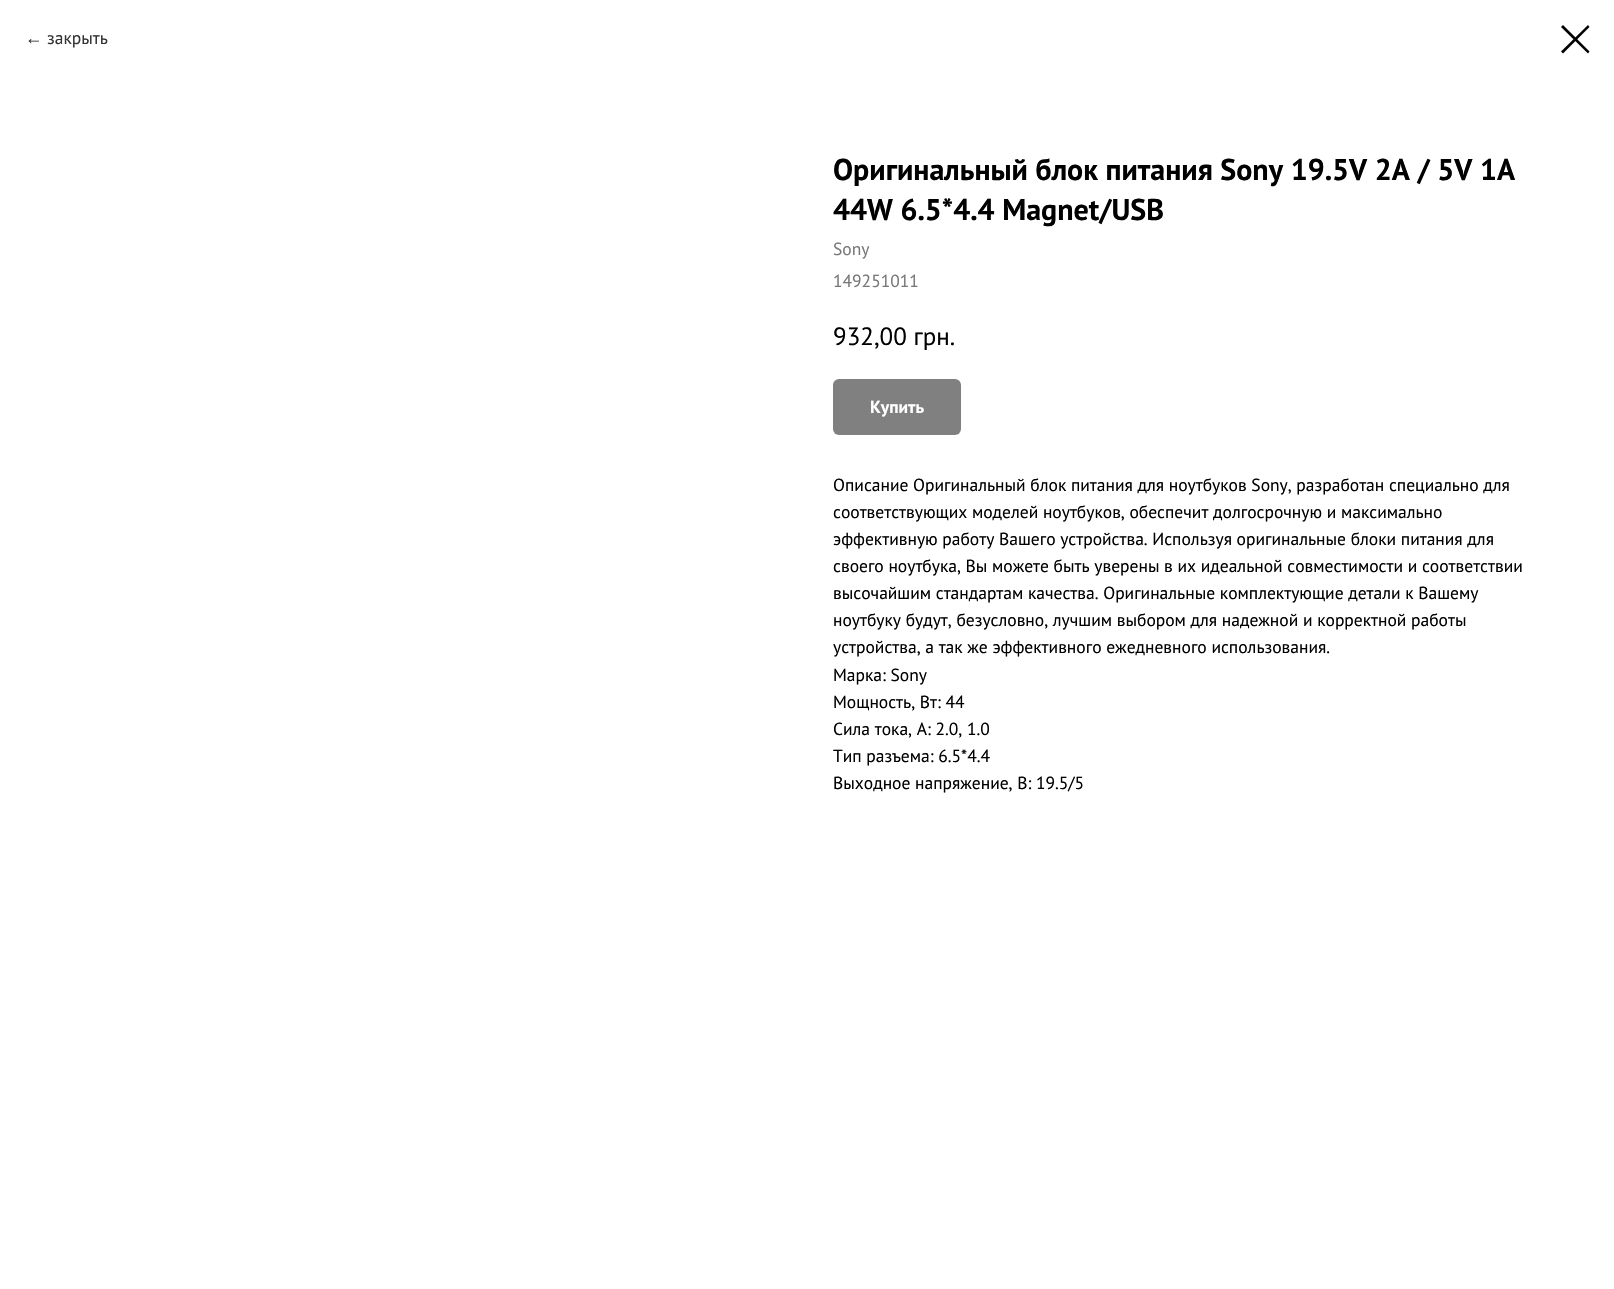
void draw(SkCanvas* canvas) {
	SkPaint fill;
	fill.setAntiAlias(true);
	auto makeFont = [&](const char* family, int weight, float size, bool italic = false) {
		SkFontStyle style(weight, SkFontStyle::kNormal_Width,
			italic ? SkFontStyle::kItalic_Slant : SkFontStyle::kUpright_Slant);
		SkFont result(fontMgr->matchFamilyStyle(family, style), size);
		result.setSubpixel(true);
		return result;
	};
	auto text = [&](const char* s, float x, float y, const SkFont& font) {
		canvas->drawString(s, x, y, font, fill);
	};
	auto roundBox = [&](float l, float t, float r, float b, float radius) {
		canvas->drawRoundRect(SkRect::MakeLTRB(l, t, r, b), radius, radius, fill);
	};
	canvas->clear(0xFFFFFFFF);
	fill.setColor(0xFF000000);
	canvas->drawPath(SkPathBuilder(SkPathFillType::kEvenOdd).moveTo(1561, 27).lineTo(1563, 25).lineTo(1589.5f, 51.5f).lineTo(1588, 53.5f).close().detach(), fill);
	canvas->drawPath(SkPathBuilder(SkPathFillType::kEvenOdd).moveTo(1588, 25).lineTo(1589.5f, 27).lineTo(1563, 53.5f).lineTo(1561, 51.5f).close().detach(), fill);
	fill.setColor(0xFF808080);
	roundBox(833, 379, 961, 435, 6);
	auto font1 = makeFont("Liberation Sans", 400, 17.5f);
	fill.setColor(0xFF333333);
	text("←", 25, 44, font1);
	auto font2 = makeFont("PT Sans", 400, 17.5f);
	text("закрыть", 47, 44, font2);
	auto font3 = makeFont("PT Sans", 700, 30);
	fill.setColor(0xFF000000);
	text("Оригинальный блок питания Sony 19.5V 2A / 5V 1A", 833, 180, font3);
	text("44W 6.5*4.4 Magnet/USB", 833, 220, font3);
	fill.setColor(0xFF777777);
	text("Sony", 833, 255, font2);
	text("149251011", 833, 287, font2);
	auto font4 = makeFont("PT Sans", 400, 25);
	fill.setColor(0xFF000000);
	text("932,00 грн.", 833, 345, font4);
	auto font5 = makeFont("PT Sans", 700, 17.5f);
	fill.setColor(0xFFFFFFFF);
	text("Купить", 870, 413, font5);
	fill.setColor(0xFF000000);
	text("Описание Оригинальный блок питания для ноутбуков Sony, разработан специально для", 833, 491, font2);
	text("соответствующих моделей ноутбуков, обеспечит долгосрочную и максимально", 833, 518, font2);
	text("эффективную работу Вашего устройства. Используя оригинальные блоки питания для", 833, 545, font2);
	text("своего ноутбука, Вы можете быть уверены в их идеальной совместимости и соответствии", 833, 572, font2);
	text("высочайшим стандартам качества. Оригинальные комплектующие детали к Вашему", 833, 599, font2);
	text("ноутбуку будут, безусловно, лучшим выбором для надежной и корректной работы", 833, 626, font2);
	text("устройства, а так же эффективного ежедневного использования.", 833, 653, font2);
	text("Марка: Sony", 833, 681, font2);
	text("Мощность, Вт: 44", 833, 708, font2);
	text("Сила тока, А: 2.0, 1.0", 833, 735, font2);
	text("Тип разъема: 6.5*4.4", 833, 762, font2);
	text("Выходное напряжение, В: 19.5/5", 833, 789, font2);
}
